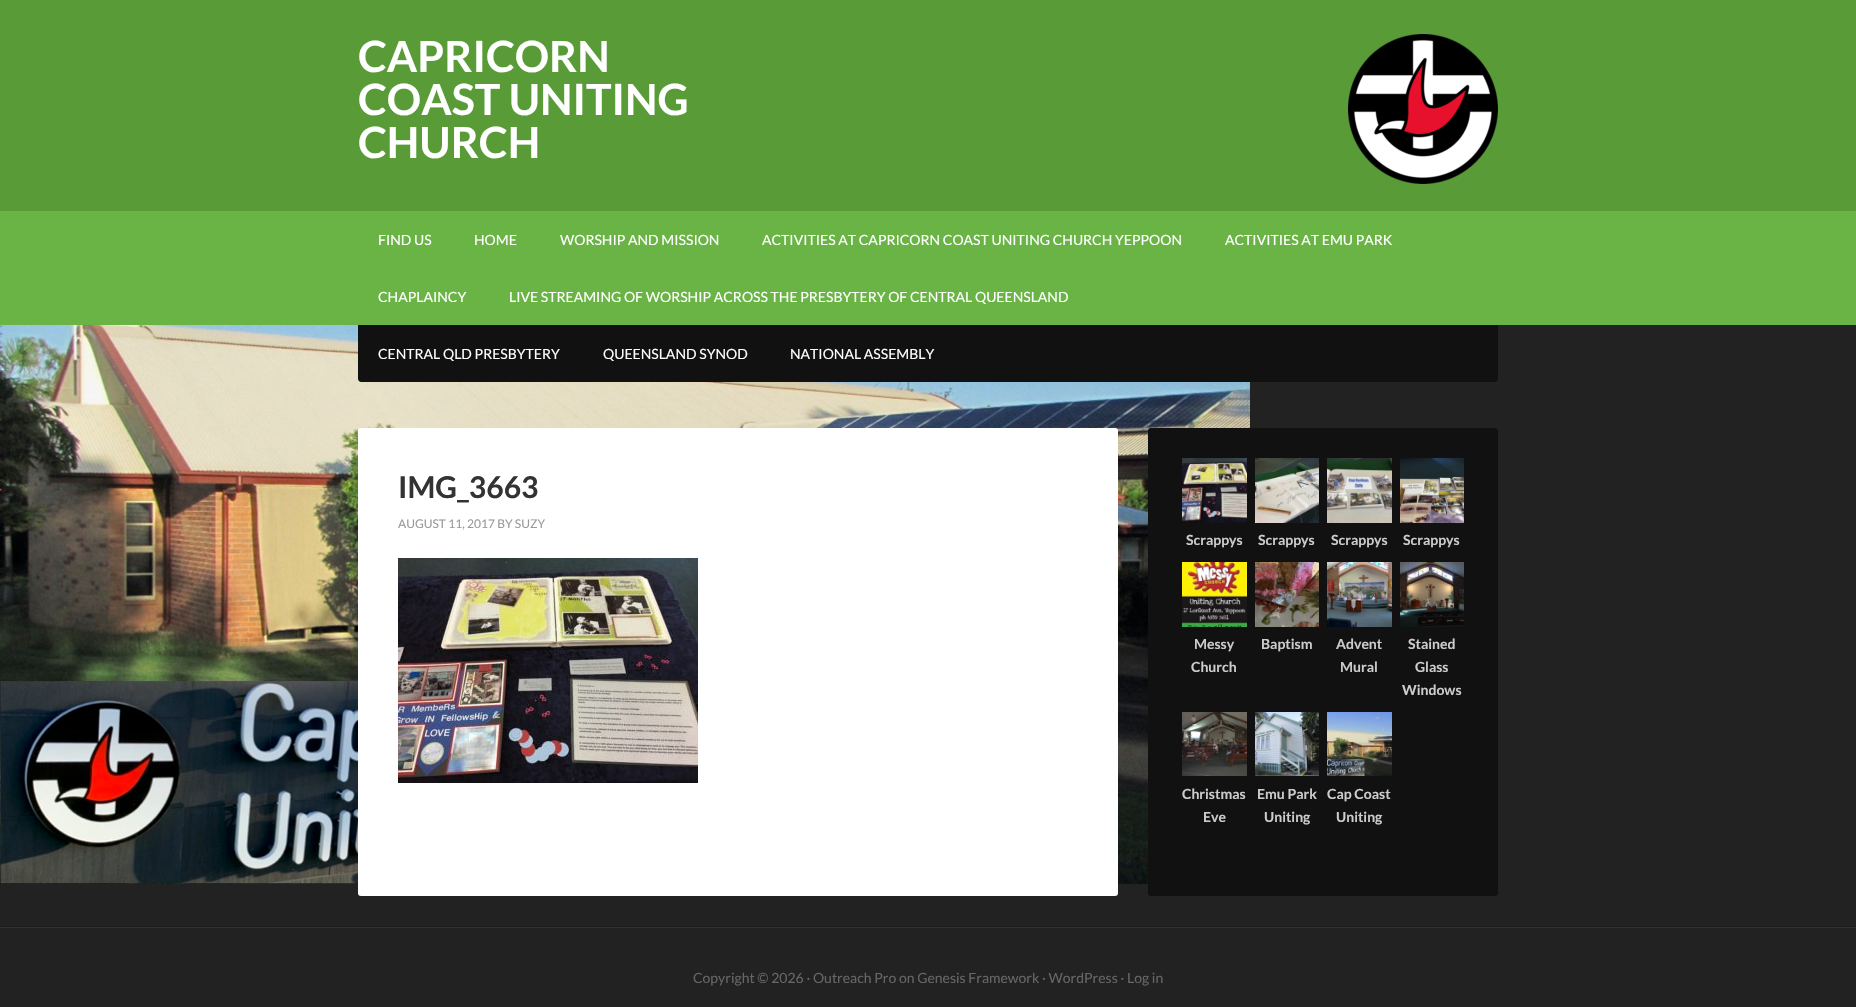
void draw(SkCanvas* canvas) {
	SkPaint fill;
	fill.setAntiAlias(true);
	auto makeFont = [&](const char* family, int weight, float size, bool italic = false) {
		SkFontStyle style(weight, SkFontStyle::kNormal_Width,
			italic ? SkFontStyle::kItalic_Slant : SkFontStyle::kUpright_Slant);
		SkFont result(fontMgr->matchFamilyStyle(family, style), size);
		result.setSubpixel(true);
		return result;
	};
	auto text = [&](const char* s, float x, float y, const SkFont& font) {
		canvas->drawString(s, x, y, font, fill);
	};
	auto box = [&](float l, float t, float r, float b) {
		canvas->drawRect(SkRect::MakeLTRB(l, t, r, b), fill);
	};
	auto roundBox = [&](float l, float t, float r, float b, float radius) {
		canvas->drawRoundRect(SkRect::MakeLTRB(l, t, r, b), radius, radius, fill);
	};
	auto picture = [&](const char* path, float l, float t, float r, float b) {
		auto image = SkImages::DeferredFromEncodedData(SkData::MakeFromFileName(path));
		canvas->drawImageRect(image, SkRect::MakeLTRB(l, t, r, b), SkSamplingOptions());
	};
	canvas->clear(0xFF222222);
	picture("image0.png", 0, 325, 1250, 884);
	fill.setColor(0xFF589B37);
	box(0, 0, 1856, 211);
	picture("image1.png", 1348, 34, 1498, 184);
	fill.setColor(0xFF6AB446);
	box(0, 211, 1856, 325);
	fill.setColor(0xFF111111);
	canvas->drawPath(SkPathBuilder().moveTo(358, 325).lineTo(1498, 325).lineTo(1498, 379).cubicTo(1498, 380.5f, 1496.5f, 382, 1495, 382).lineTo(361, 382).cubicTo(359.5f, 382, 358, 380.5f, 358, 379).close().detach(), fill);
	fill.setColor(0xFFFFFFFF);
	roundBox(358, 428, 1118, 896, 3);
	picture("image2.png", 398, 558, 698, 783);
	fill.setColor(0xFF111111);
	roundBox(1148, 428, 1498, 896, 3);
	picture("image3.png", 1182, 458, 1247, 523);
	picture("image4.png", 1255, 458, 1319, 523);
	picture("image5.png", 1327, 458, 1392, 523);
	picture("image6.png", 1400, 458, 1464, 523);
	picture("image7.png", 1182, 562, 1247, 627);
	picture("image8.png", 1255, 562, 1319, 627);
	picture("image9.png", 1327, 562, 1392, 627);
	picture("image10.png", 1400, 562, 1464, 627);
	picture("image11.png", 1182, 712, 1247, 776);
	picture("image12.png", 1255, 712, 1319, 776);
	picture("image13.png", 1327, 712, 1392, 776);
	fill.setColor(0xFF313131);
	box(0, 927, 1856, 928);
	fill.setColor(0xFF1B1B1B);
	box(0, 926, 1856, 927);
	auto font1 = makeFont("Lato", 700, 43);
	fill.setColor(0xFFFFFFFF);
	text("CAPRICORN", 358, 72, font1);
	text("COAST UNITING", 358, 115, font1);
	text("CHURCH", 358, 158, font1);
	auto font2 = makeFont("Lato", 400, 14);
	text("FIND US", 378, 245, font2);
	text("HOME", 474, 245, font2);
	text("WORSHIP AND MISSION", 560, 245, font2);
	text("ACTIVITIES AT CAPRICORN COAST UNITING CHURCH YEPPOON", 762, 245, font2);
	text("ACTIVITIES AT EMU PARK", 1225, 245, font2);
	text("CHAPLAINCY", 378, 302, font2);
	text("LIVE STREAMING OF WORSHIP ACROSS THE PRESBYTERY OF CENTRAL QUEENSLAND", 509, 302, font2);
	text("CENTRAL QLD PRESBYTERY", 378, 359, font2);
	text("QUEENSLAND SYNOD", 603, 359, font2);
	text("NATIONAL ASSEMBLY", 790, 359, font2);
	auto font3 = makeFont("Lato", 700, 30);
	fill.setColor(0xFF333333);
	text("IMG_3663", 398, 498, font3);
	auto font4 = makeFont("Lato", 400, 12);
	fill.setColor(0xFF999999);
	text("AUGUST 11, 2017 BY SUZY", 398, 528, font4);
	auto font5 = makeFont("Lato", 700, 14);
	fill.setColor(0xFFCCCCCC);
	text("Scrappys", 1186, 545, font5);
	text("Scrappys", 1258, 545, font5);
	text("Scrappys", 1331, 545, font5);
	text("Scrappys", 1403, 545, font5);
	text("Messy", 1194, 649, font5);
	text("Church", 1191, 672, font5);
	text("Baptism", 1261, 649, font5);
	text("Advent", 1336, 649, font5);
	text("Mural", 1340, 672, font5);
	text("Stained", 1408, 649, font5);
	text("Glass", 1415, 672, font5);
	text("Windows", 1402, 695, font5);
	text("Christmas", 1182, 799, font5);
	text("Eve", 1203, 822, font5);
	text("Emu Park", 1257, 799, font5);
	text("Uniting", 1264, 822, font5);
	text("Cap Coast", 1327, 799, font5);
	text("Uniting", 1336, 822, font5);
	fill.setColor(0xFF666666);
	text("Copyright © 2026 · Outreach Pro on Genesis Framework · WordPress · Log in", 693, 983, font2);
}
